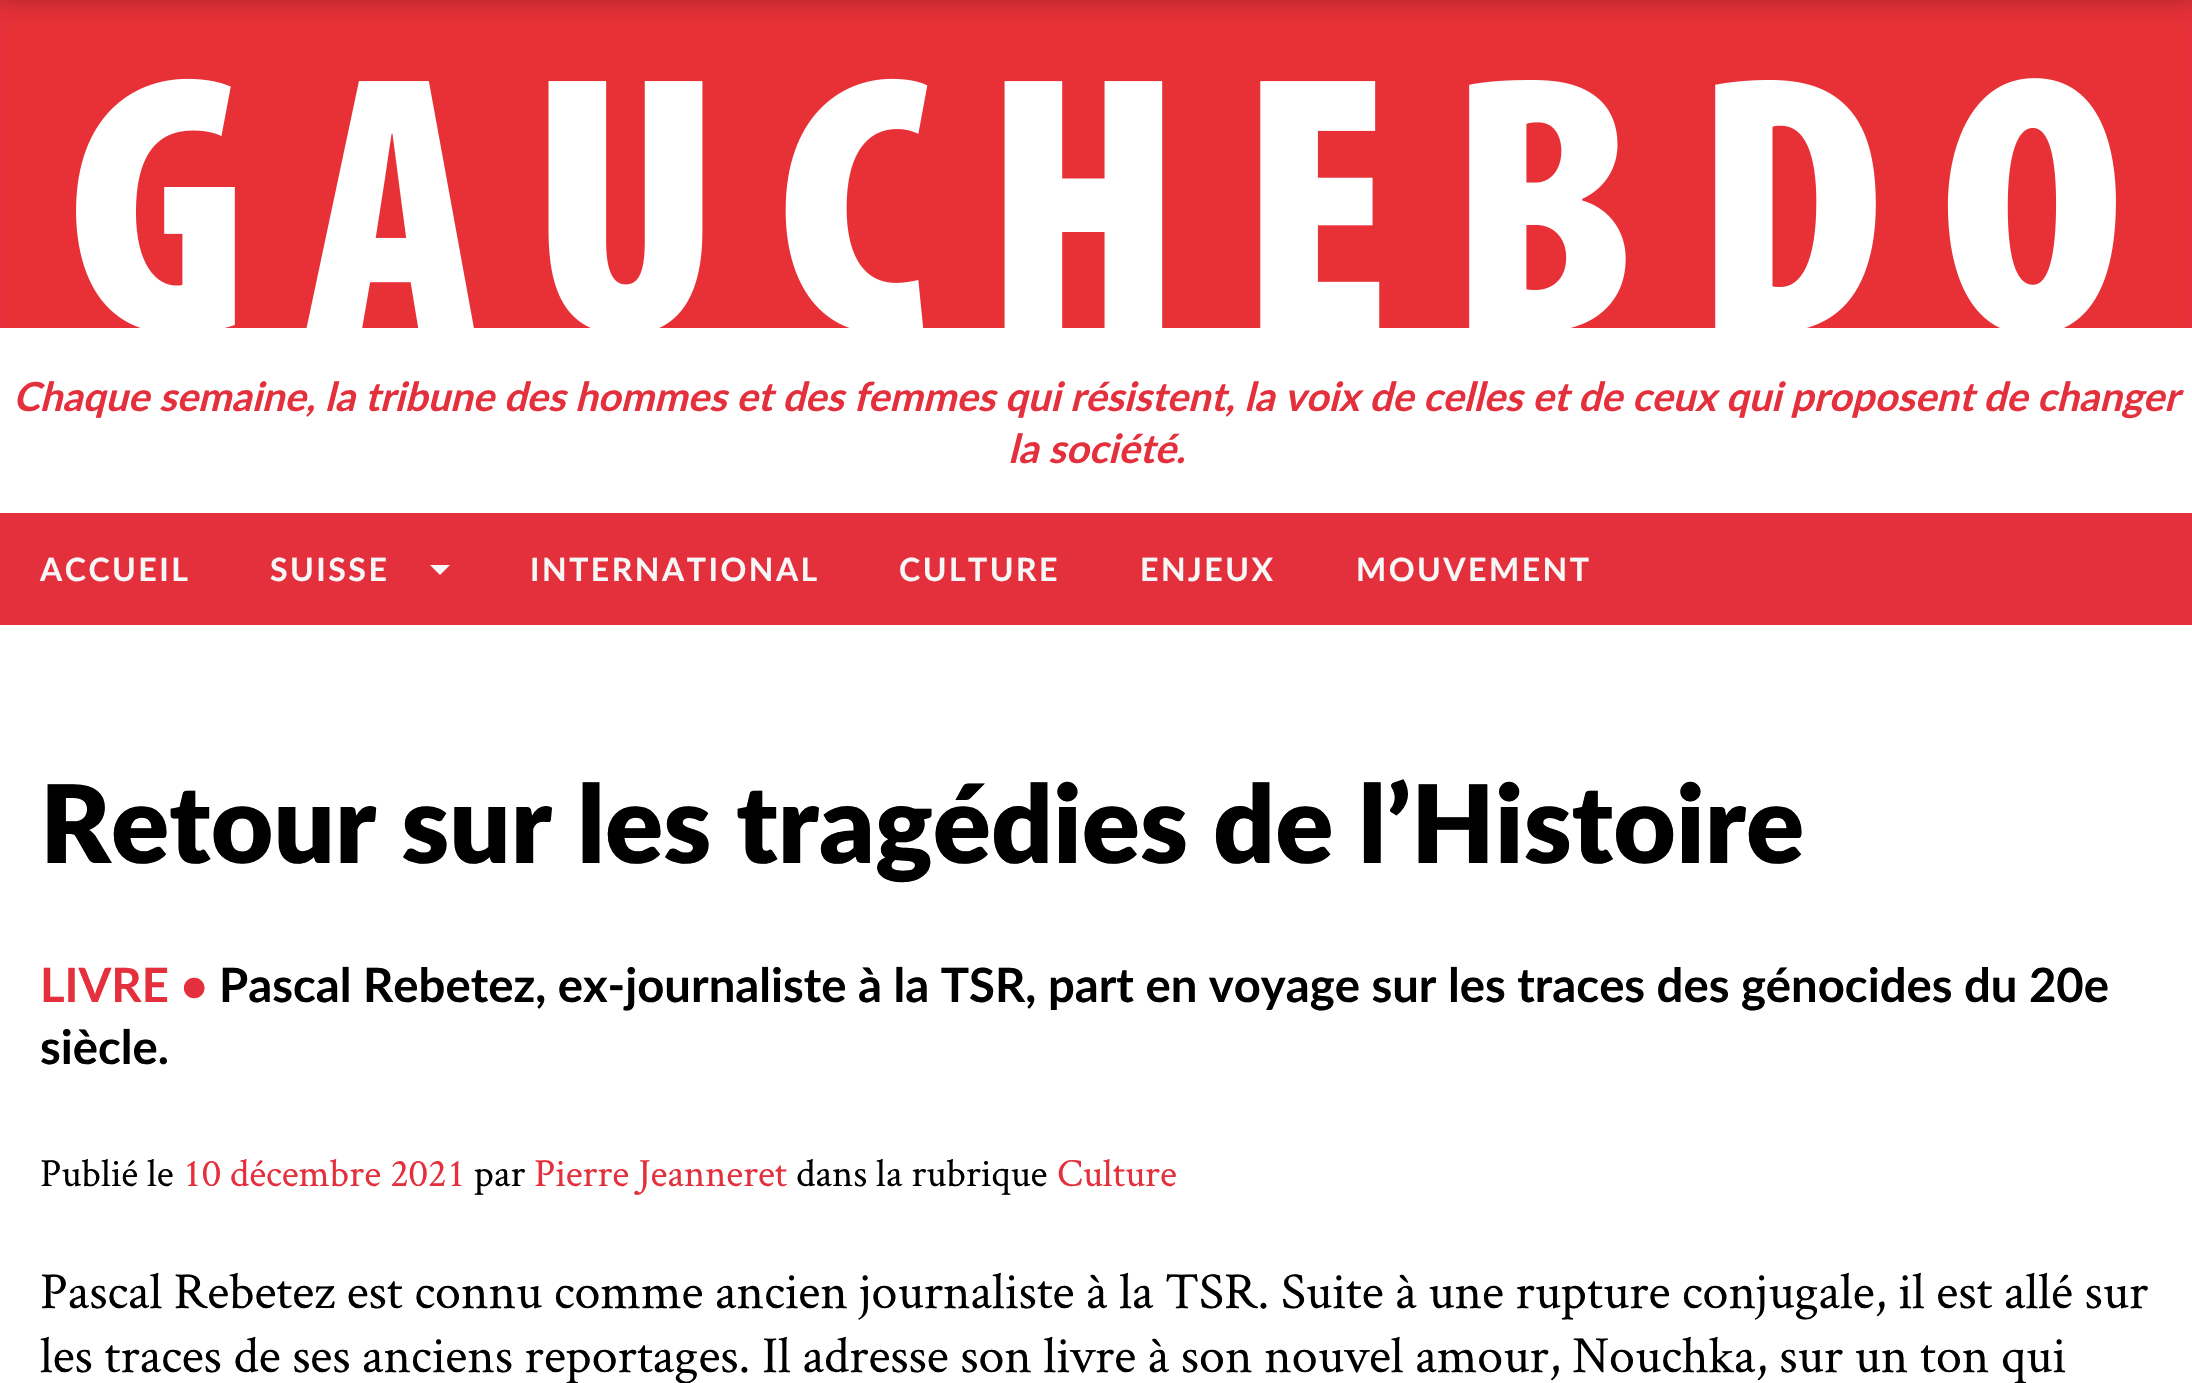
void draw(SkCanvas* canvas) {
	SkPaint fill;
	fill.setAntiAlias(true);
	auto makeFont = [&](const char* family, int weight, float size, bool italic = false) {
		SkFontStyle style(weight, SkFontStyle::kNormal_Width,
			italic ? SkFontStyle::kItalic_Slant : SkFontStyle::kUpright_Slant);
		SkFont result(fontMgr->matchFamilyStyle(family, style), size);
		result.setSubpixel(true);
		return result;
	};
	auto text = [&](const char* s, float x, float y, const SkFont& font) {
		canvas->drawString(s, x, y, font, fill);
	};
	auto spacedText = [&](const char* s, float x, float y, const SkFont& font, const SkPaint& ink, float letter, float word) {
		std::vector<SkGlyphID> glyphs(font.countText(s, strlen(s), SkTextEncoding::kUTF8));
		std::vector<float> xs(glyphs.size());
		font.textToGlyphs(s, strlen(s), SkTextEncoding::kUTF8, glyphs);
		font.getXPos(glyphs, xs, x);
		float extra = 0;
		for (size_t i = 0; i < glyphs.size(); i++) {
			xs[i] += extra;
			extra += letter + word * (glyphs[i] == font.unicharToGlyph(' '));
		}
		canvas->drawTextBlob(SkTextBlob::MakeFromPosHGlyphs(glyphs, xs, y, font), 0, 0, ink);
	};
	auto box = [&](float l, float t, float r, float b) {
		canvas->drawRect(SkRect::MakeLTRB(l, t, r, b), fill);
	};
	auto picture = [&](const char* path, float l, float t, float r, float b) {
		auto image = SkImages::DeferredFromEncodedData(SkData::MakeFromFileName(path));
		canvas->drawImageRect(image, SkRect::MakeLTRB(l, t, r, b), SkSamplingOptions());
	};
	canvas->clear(0xFFFFFFFF);
	fill.setColor(0xFFE4303C);
	box(0, 0, 2192, 625);
	picture("image0.png", 3, 0, 2189, 328);
	fill.setColor(0xFFFFFFFF);
	box(0, 328, 2192, 513);
	fill.setColor(0xFFF7F7F7);
	canvas->drawPath(SkPathBuilder().moveTo(430, 565).lineTo(450, 565).lineTo(440, 575).close().detach(), fill);
	fill.setColor(0x47000000);
	fill.setMaskFilter(SkMaskFilter::MakeBlur(kNormal_SkBlurStyle, 12.5f));
	canvas->drawRect(SkRect::MakeLTRB(0, -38, 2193, 0), fill);
	fill.setMaskFilter(nullptr);
	auto font1 = makeFont("Lato", 700, 40, true);
	fill.setColor(0xFFE4303C);
	text("Chaque semaine, la tribune des hommes et des femmes qui résistent, la voix de celles et de ceux qui proposent de changer", 13, 411, font1);
	text("la société.", 1008, 463, font1);
	auto font2 = makeFont("Lato", 700, 32);
	fill.setColor(0xFFF7F7F7);
	spacedText("ACCUEIL", 40, 581, font2, fill, 2.5f, 0);
	spacedText("SUISSE", 270, 581, font2, fill, 2.5f, 0);
	spacedText("INTERNATIONAL", 530, 581, font2, fill, 2.5f, 0);
	spacedText("CULTURE", 899, 581, font2, fill, 2.5f, 0);
	spacedText("ENJEUX", 1140, 581, font2, fill, 2.5f, 0);
	spacedText("MOUVEMENT", 1356, 581, font2, fill, 2.5f, 0);
	auto font3 = makeFont("Lato", 900, 108);
	fill.setColor(0xFF000000);
	text("Retour sur les tragédies de l’Histoire", 40, 863, font3);
	auto font4 = makeFont("Lato", 700, 47.25f);
	fill.setColor(0xFFE4303C);
	text("LIVRE •", 40, 1002, font4);
	fill.setColor(0xFF000000);
	text("Pascal Rebetez, ex-journaliste à la TSR, part en voyage sur les traces des génocides du 20e", 219, 1002, font4);
	text("siècle.", 40, 1064, font4);
	auto font5 = makeFont("Crimson Text", 400, 40);
	text("Publié le", 40, 1186, font5);
	fill.setColor(0xFFE4303C);
	text("10 décembre 2021", 183, 1186, font5);
	fill.setColor(0xFF000000);
	text("par", 474, 1186, font5);
	fill.setColor(0xFFE4303C);
	text("Pierre Jeanneret", 534, 1186, font5);
	fill.setColor(0xFF000000);
	text("dans la rubrique", 796, 1186, font5);
	fill.setColor(0xFFE4303C);
	text("Culture", 1057, 1186, font5);
	auto font6 = makeFont("Crimson Text", 400, 52);
	fill.setColor(0xFF000000);
	text("Pascal Rebetez est connu comme ancien journaliste à la TSR. Suite à une rupture conjugale, il est allé sur", 40, 1308, font6);
	text("les traces de ses anciens reportages. Il adresse son livre à son nouvel amour, Nouchka, sur un ton qui", 40, 1372, font6);
}
